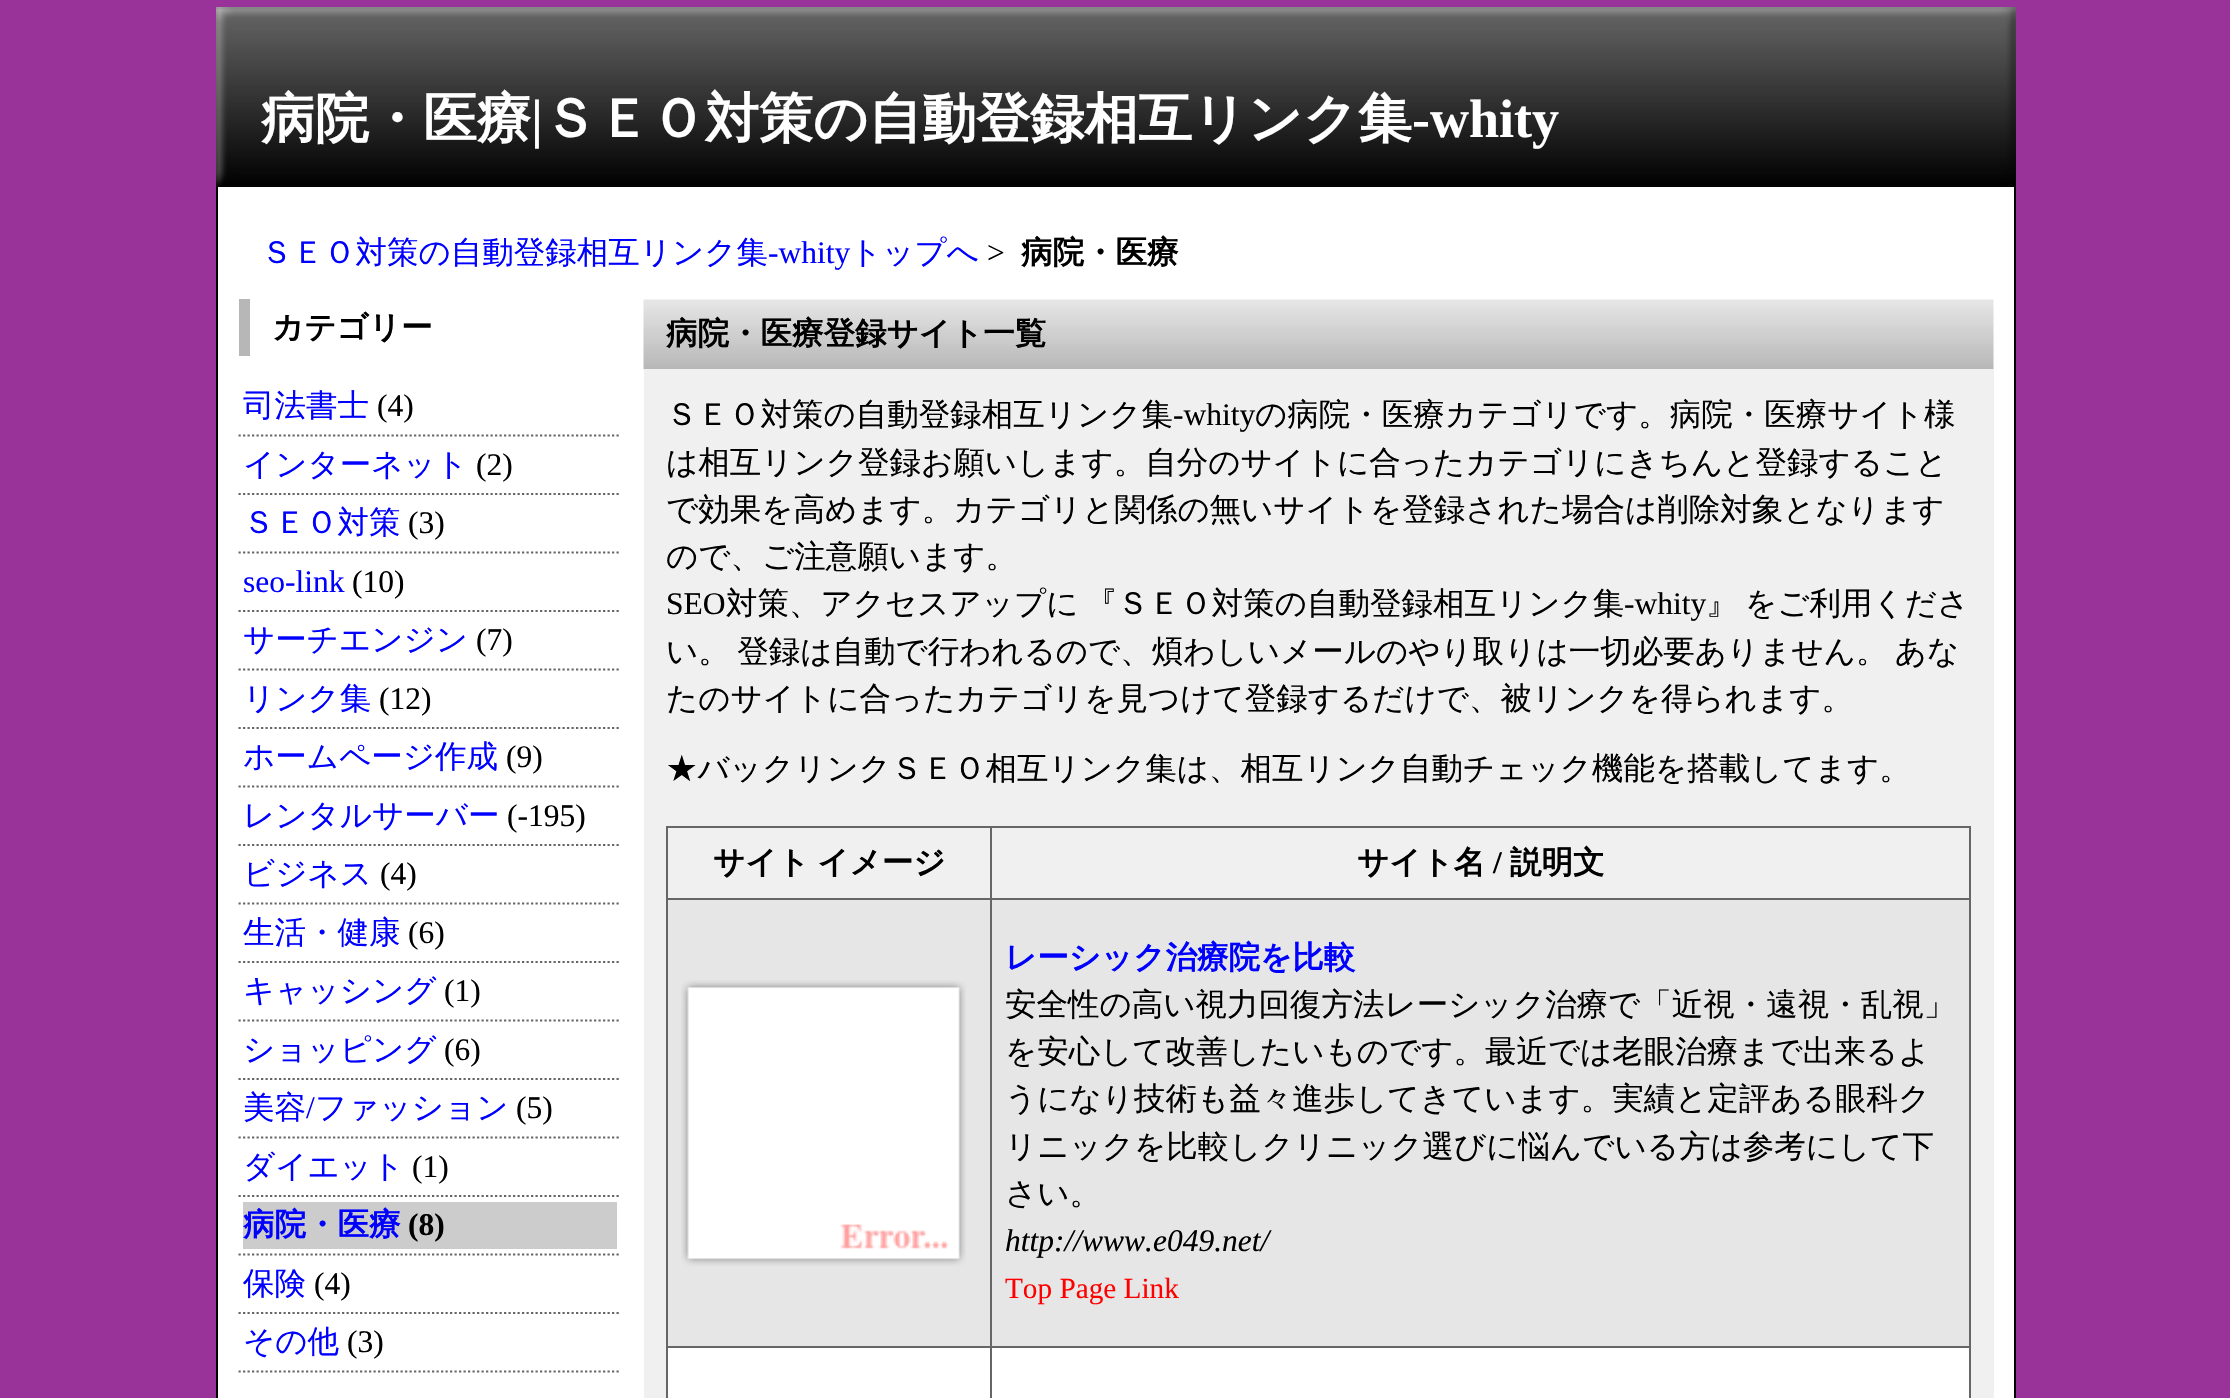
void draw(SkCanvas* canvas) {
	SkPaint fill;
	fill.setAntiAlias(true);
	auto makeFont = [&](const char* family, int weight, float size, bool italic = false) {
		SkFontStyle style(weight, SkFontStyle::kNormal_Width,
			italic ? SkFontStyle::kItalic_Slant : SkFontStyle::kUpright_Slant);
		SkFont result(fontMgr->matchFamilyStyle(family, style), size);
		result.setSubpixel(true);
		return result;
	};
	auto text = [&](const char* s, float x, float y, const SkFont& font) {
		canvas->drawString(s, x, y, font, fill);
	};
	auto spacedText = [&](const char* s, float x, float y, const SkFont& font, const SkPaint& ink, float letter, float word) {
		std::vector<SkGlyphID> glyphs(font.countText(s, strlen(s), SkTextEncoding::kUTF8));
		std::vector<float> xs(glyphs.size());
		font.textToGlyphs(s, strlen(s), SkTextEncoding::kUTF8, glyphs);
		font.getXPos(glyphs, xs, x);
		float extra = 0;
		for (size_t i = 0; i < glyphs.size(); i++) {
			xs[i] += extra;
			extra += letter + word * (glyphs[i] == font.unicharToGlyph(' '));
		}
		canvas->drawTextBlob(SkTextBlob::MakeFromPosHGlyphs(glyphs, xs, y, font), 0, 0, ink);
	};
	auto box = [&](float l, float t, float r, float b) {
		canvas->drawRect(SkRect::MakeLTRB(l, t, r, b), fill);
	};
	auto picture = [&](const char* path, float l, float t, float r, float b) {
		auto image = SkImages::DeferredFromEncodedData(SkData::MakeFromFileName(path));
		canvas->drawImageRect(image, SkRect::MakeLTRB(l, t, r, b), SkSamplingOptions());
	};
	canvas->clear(0xFF993399);
	picture("image0.png", 216, 7, 2016, 187);
	fill.setColor(0xFFFFFFFF);
	box(218, 187, 2014, 1398);
	fill.setColor(0xFF000000);
	box(2014, 187, 2016, 1398);
	box(216, 187, 218, 1398);
	fill.setColor(0xFFB7B7B7);
	box(239, 299, 250, 356);
	fill.setStyle(SkPaint::kStroke_Style);
	fill.setStrokeWidth(2.2f);
	fill.setColor(0xFF666666);
	fill.setPathEffect(SkDashPathEffect::Make({{2.25f, 2.25f}}, 0));
	canvas->drawPath(SkPathBuilder().moveTo(238.5f, 435.5f).lineTo(621, 435.5f).detach(), fill);
	fill.setPathEffect(nullptr);
	fill.setPathEffect(SkDashPathEffect::Make({{2.25f, 2.25f}}, 0));
	canvas->drawPath(SkPathBuilder().moveTo(238.5f, 494).lineTo(621, 494).detach(), fill);
	fill.setPathEffect(nullptr);
	fill.setPathEffect(SkDashPathEffect::Make({{2.25f, 2.25f}}, 0));
	canvas->drawPath(SkPathBuilder().moveTo(238.5f, 552.5f).lineTo(621, 552.5f).detach(), fill);
	fill.setPathEffect(nullptr);
	fill.setPathEffect(SkDashPathEffect::Make({{2.25f, 2.25f}}, 0));
	canvas->drawPath(SkPathBuilder().moveTo(238.5f, 611).lineTo(621, 611).detach(), fill);
	fill.setPathEffect(nullptr);
	fill.setPathEffect(SkDashPathEffect::Make({{2.25f, 2.25f}}, 0));
	canvas->drawPath(SkPathBuilder().moveTo(238.5f, 669.5f).lineTo(621, 669.5f).detach(), fill);
	fill.setPathEffect(nullptr);
	fill.setPathEffect(SkDashPathEffect::Make({{2.25f, 2.25f}}, 0));
	canvas->drawPath(SkPathBuilder().moveTo(238.5f, 728).lineTo(621, 728).detach(), fill);
	fill.setPathEffect(nullptr);
	fill.setPathEffect(SkDashPathEffect::Make({{2.25f, 2.25f}}, 0));
	canvas->drawPath(SkPathBuilder().moveTo(238.5f, 786.5f).lineTo(621, 786.5f).detach(), fill);
	fill.setPathEffect(nullptr);
	fill.setPathEffect(SkDashPathEffect::Make({{2.25f, 2.25f}}, 0));
	canvas->drawPath(SkPathBuilder().moveTo(238.5f, 845).lineTo(621, 845).detach(), fill);
	fill.setPathEffect(nullptr);
	fill.setPathEffect(SkDashPathEffect::Make({{2.25f, 2.25f}}, 0));
	canvas->drawPath(SkPathBuilder().moveTo(238.5f, 903.5f).lineTo(621, 903.5f).detach(), fill);
	fill.setPathEffect(nullptr);
	fill.setPathEffect(SkDashPathEffect::Make({{2.25f, 2.25f}}, 0));
	canvas->drawPath(SkPathBuilder().moveTo(238.5f, 962).lineTo(621, 962).detach(), fill);
	fill.setPathEffect(nullptr);
	fill.setPathEffect(SkDashPathEffect::Make({{2.25f, 2.25f}}, 0));
	canvas->drawPath(SkPathBuilder().moveTo(238.5f, 1020.5f).lineTo(621, 1020.5f).detach(), fill);
	fill.setPathEffect(nullptr);
	fill.setPathEffect(SkDashPathEffect::Make({{2.25f, 2.25f}}, 0));
	canvas->drawPath(SkPathBuilder().moveTo(238.5f, 1079).lineTo(621, 1079).detach(), fill);
	fill.setPathEffect(nullptr);
	fill.setPathEffect(SkDashPathEffect::Make({{2.25f, 2.25f}}, 0));
	canvas->drawPath(SkPathBuilder().moveTo(238.5f, 1137.5f).lineTo(621, 1137.5f).detach(), fill);
	fill.setPathEffect(nullptr);
	fill.setPathEffect(SkDashPathEffect::Make({{2.25f, 2.25f}}, 0));
	canvas->drawPath(SkPathBuilder().moveTo(238.5f, 1196).lineTo(621, 1196).detach(), fill);
	fill.setPathEffect(nullptr);
	fill.setPathEffect(SkDashPathEffect::Make({{2.25f, 2.25f}}, 0));
	canvas->drawPath(SkPathBuilder().moveTo(238.5f, 1254.5f).lineTo(621, 1254.5f).detach(), fill);
	fill.setPathEffect(nullptr);
	fill.setStyle(SkPaint::kFill_Style);
	fill.setColor(0xFFCCCCCC);
	box(243, 1202, 617, 1249);
	fill.setStyle(SkPaint::kStroke_Style);
	fill.setColor(0xFF666666);
	fill.setPathEffect(SkDashPathEffect::Make({{2.25f, 2.25f}}, 0));
	canvas->drawPath(SkPathBuilder().moveTo(238.5f, 1313).lineTo(621, 1313).detach(), fill);
	fill.setPathEffect(nullptr);
	fill.setPathEffect(SkDashPathEffect::Make({{2.25f, 2.25f}}, 0));
	canvas->drawPath(SkPathBuilder().moveTo(238.5f, 1371.5f).lineTo(621, 1371.5f).detach(), fill);
	fill.setPathEffect(nullptr);
	picture("image1.png", 643, 299, 1994, 370);
	fill.setStyle(SkPaint::kFill_Style);
	fill.setColor(0xFFF0F0F0);
	box(644, 369, 1994, 1398);
	fill.setColor(0xFF666666);
	box(666, 826, 1971, 828);
	box(1969, 826, 1971, 1398);
	box(666, 826, 668, 1398);
	box(990, 898, 1971, 900);
	box(990, 1346, 1971, 1348);
	box(990, 1346, 992, 1398);
	box(666, 1346, 992, 1348);
	box(990, 898, 992, 1348);
	box(666, 898, 992, 900);
	box(990, 826, 992, 900);
	fill.setColor(0xFFE6E6E6);
	box(668, 900, 990, 1346);
	picture("image2.png", 681, 980, 966, 1266);
	box(992, 900, 1969, 1346);
	fill.setColor(0xFFFFFFFF);
	box(668, 1348, 990, 1398);
	box(992, 1348, 1969, 1398);
	auto font1 = makeFont("WenQuanYi Zen Hei", 700, 54);
	text("病院・医療", 261, 137, font1);
	auto font2 = makeFont("Liberation Serif", 700, 54);
	text("|", 531, 137, font2);
	text("ＳＥＯ対策の自動登録相互リンク集", 543, 137, font1);
	text("-whity", 1412, 137, font2);
	auto font3 = makeFont("WenQuanYi Zen Hei", 500, 31.5f);
	fill.setColor(0xFF0000FF);
	text("ＳＥＯ対策の自動登録相互リンク集", 261, 263, font3);
	auto font4 = makeFont("Liberation Serif", 400, 31.5f);
	text("-whity", 768, 263, font4);
	text("トップへ", 850, 263, font3);
	fill.setColor(0xFF000000);
	text(">", 987, 263, font4);
	auto font5 = makeFont("WenQuanYi Zen Hei", 700, 31.5f);
	text("病院・医療", 1021, 263, font5);
	text("カテゴリー", 272, 338, font5);
	fill.setColor(0xFF0000FF);
	text("司法書士", 243, 416, font3);
	fill.setColor(0xFF000000);
	text("(4)", 377, 416, font4);
	fill.setColor(0xFF0000FF);
	text("インターネット", 243, 475, font3);
	fill.setColor(0xFF000000);
	text("(2)", 476, 475, font4);
	fill.setColor(0xFF0000FF);
	text("ＳＥＯ対策", 243, 533, font3);
	fill.setColor(0xFF000000);
	text("(3)", 408, 533, font4);
	fill.setColor(0xFF0000FF);
	text("seo-link", 243, 592, font4);
	fill.setColor(0xFF000000);
	text("(10)", 352, 592, font4);
	fill.setColor(0xFF0000FF);
	text("サーチエンジン", 243, 650, font3);
	fill.setColor(0xFF000000);
	text("(7)", 476, 650, font4);
	fill.setColor(0xFF0000FF);
	text("リンク集", 243, 709, font3);
	fill.setColor(0xFF000000);
	text("(12)", 379, 709, font4);
	fill.setColor(0xFF0000FF);
	text("ホームページ作成", 243, 767, font3);
	fill.setColor(0xFF000000);
	text("(9)", 506, 767, font4);
	fill.setColor(0xFF0000FF);
	text("レンタルサーバー", 243, 826, font3);
	fill.setColor(0xFF000000);
	text("(-195)", 507, 826, font4);
	fill.setColor(0xFF0000FF);
	text("ビジネス", 243, 884, font3);
	fill.setColor(0xFF000000);
	text("(4)", 380, 884, font4);
	fill.setColor(0xFF0000FF);
	text("生活・健康", 243, 943, font3);
	fill.setColor(0xFF000000);
	text("(6)", 408, 943, font4);
	fill.setColor(0xFF0000FF);
	text("キャッシング", 243, 1001, font3);
	fill.setColor(0xFF000000);
	text("(1)", 444, 1001, font4);
	fill.setColor(0xFF0000FF);
	text("ショッピング", 243, 1060, font3);
	fill.setColor(0xFF000000);
	text("(6)", 444, 1060, font4);
	fill.setColor(0xFF0000FF);
	text("美容", 243, 1118, font3);
	text("/", 306, 1118, font4);
	text("ファッション", 315, 1118, font3);
	fill.setColor(0xFF000000);
	text("(5)", 516, 1118, font4);
	fill.setColor(0xFF0000FF);
	text("ダイエット", 243, 1177, font3);
	fill.setColor(0xFF000000);
	text("(1)", 412, 1177, font4);
	fill.setColor(0xFF0000FF);
	text("病院・医療", 243, 1235, font5);
	auto font6 = makeFont("Liberation Serif", 700, 31.5f);
	fill.setColor(0xFF000000);
	text("(8)", 408, 1235, font6);
	fill.setColor(0xFF0000FF);
	text("保険", 243, 1294, font3);
	fill.setColor(0xFF000000);
	text("(4)", 314, 1294, font4);
	fill.setColor(0xFF0000FF);
	text("その他", 243, 1352, font3);
	fill.setColor(0xFF000000);
	text("(3)", 347, 1352, font4);
	text("病院・医療登録サイト一覧", 666, 344, font5);
	text("ＳＥＯ対策の自動登録相互リンク集", 666, 425, font3);
	text("-whity", 1173, 425, font4);
	text("の病院・医療カテゴリです。病院・医療サイト様", 1255, 425, font3);
	text("は相互リンク登録お願いします。自分のサイトに合ったカテゴリにきちんと登録すること", 666, 473, font3);
	text("で効果を高めます。カテゴリと関係の無いサイトを登録された場合は削除対象となります", 666, 520, font3);
	text("ので、ご注意願います。", 666, 567, font3);
	text("SEO", 666, 614, font4);
	spacedText("対策、アクセスアップに 『ＳＥＯ対策の自動登録相互リンク集", 726, 614, font3, fill, 0, -2);
	text("-whity", 1624, 614, font4);
	spacedText("』 をご利用くださ", 1706, 614, font3, fill, 0, -2);
	spacedText("い。 登録は自動で行われるので、煩わしいメールのやり取りは一切必要ありません。 あな", 666, 662, font3, fill, 0, -2);
	text("たのサイトに合ったカテゴリを見つけて登録するだけで、被リンクを得られます。", 666, 709, font3);
	text("★バックリンクＳＥＯ相互リンク集は、相互リンク自動チェック機能を搭載してます。", 666, 779, font3);
	spacedText("サイト イメージ", 713, 873, font5, fill, 0, -2);
	text("サイト名", 1357, 873, font5);
	text("/", 1493, 873, font6);
	text("説明文", 1510, 873, font5);
	fill.setColor(0xFF0000FF);
	text("レーシック治療院を比較", 1005, 968, font5);
	fill.setColor(0xFF000000);
	text("安全性の高い視力回復方法レーシック治療で「近視・遠視・乱視」", 1005, 1015, font3);
	text("を安心して改善したいものです。最近では老眼治療まで出来るよ", 1005, 1062, font3);
	text("うになり技術も益々進歩してきています。実績と定評ある眼科ク", 1005, 1109, font3);
	text("リニックを比較しクリニック選びに悩んでいる方は参考にして下", 1005, 1157, font3);
	text("さい。", 1005, 1204, font3);
	auto font7 = makeFont("Liberation Serif", 400, 31.5f, true);
	text("http://www.e049.net/", 1005, 1251, font7);
	auto font8 = makeFont("Liberation Serif", 400, 29.25f);
	fill.setColor(0xFFFF0000);
	text("Top Page Link", 1005, 1298, font8);
}
